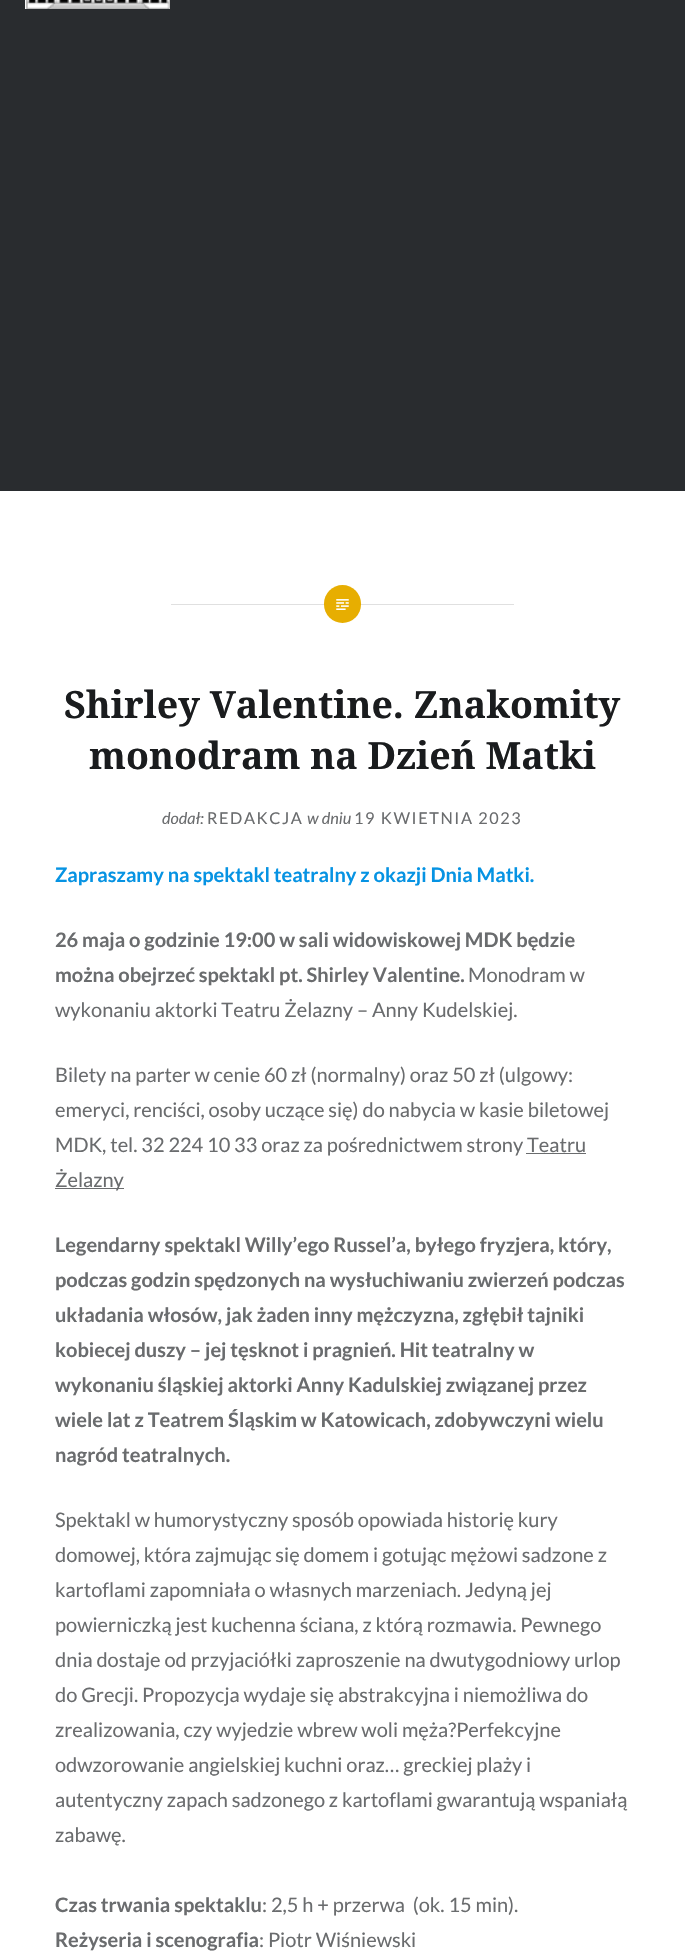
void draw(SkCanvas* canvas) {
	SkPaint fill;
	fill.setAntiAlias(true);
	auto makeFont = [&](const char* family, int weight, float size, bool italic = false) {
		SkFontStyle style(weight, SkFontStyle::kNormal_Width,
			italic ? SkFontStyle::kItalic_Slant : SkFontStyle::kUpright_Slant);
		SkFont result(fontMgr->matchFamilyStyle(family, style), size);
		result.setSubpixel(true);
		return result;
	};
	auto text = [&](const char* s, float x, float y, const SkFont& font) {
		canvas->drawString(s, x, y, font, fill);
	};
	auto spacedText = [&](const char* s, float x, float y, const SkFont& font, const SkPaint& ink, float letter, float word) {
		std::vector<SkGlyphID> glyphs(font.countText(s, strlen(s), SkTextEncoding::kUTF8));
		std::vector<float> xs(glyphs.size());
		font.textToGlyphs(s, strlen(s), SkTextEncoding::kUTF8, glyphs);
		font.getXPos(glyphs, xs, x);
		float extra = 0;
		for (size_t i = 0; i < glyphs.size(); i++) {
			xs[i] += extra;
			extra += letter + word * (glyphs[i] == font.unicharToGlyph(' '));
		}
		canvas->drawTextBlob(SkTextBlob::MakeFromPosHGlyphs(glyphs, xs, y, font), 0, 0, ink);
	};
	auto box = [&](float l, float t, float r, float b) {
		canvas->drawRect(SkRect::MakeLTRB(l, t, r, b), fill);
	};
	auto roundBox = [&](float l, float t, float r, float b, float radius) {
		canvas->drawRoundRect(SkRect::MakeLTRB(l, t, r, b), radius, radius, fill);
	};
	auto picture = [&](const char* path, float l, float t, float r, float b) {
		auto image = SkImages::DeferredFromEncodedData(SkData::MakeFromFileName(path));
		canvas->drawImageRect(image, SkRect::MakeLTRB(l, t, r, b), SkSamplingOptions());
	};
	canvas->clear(0xFFFFFFFF);
	fill.setColor(0xFF292C2F);
	box(0, 0, 685, 491);
	picture("image0.png", 25, 0, 170, 9);
	fill.setColor(0xFFE0E0E0);
	box(171, 604, 514, 605);
	fill.setColor(0xFFE7AE01);
	roundBox(324, 585, 361, 623, 18.5f);
	picture("image1.png", 336, 599, 349, 610);
	fill.setColor(0xFF6A6C6E);
	box(526, 1153, 586, 1154);
	box(55, 1188, 124, 1189);
	auto font1 = makeFont("Noto Serif", 700, 37.5f);
	fill.setColor(0xFF1A1C1E);
	text("Shirley Valentine. Znakomity", 64, 718, font1);
	text("monodram na Dzień Matki", 89, 769, font1);
	auto font2 = makeFont("Lato", 400, 16.25f, true);
	fill.setColor(0xFF6A6C6E);
	text("dodał:", 162, 824, font2);
	auto font3 = makeFont("Lato", 400, 16.25f);
	spacedText("REDAKCJA", 207, 824, font3, fill, 1.6f, 0);
	text("w dniu", 307, 824, font2);
	spacedText("19 KWIETNIA 2023", 354, 824, font3, fill, 1.6f, 0);
	auto font4 = makeFont("Lato", 700, 20);
	fill.setColor(0xFF0693E3);
	text("Zapraszamy na spektakl teatralny z okazji Dnia Matki.", 55, 882, font4);
	fill.setColor(0xFF6A6C6E);
	text("26 maja o godzinie 19:00 w sali widowiskowej MDK będzie", 55, 947, font4);
	text("można obejrzeć spektakl pt. Shirley Valentine.", 55, 982, font4);
	auto font5 = makeFont("Lato", 400, 20);
	text("Monodram w", 468, 982, font5);
	text("wykonaniu aktorki Teatru Żelazny – Anny Kudelskiej.", 55, 1017, font5);
	text("Bilety na parter w cenie 60 zł (normalny) oraz 50 zł (ulgowy:", 55, 1082, font5);
	text("emeryci, renciści, osoby uczące się) do nabycia w kasie biletowej", 55, 1117, font5);
	text("MDK, tel. 32 224 10 33 oraz za pośrednictwem strony Teatru", 55, 1152, font5);
	text("Żelazny", 55, 1187, font5);
	text("Legendarny spektakl Willy’ego Russel’a, byłego fryzjera, który,", 55, 1252, font4);
	text("podczas godzin spędzonych na wysłuchiwaniu zwierzeń podczas", 55, 1287, font4);
	text("układania włosów, jak żaden inny mężczyzna, zgłębił tajniki", 55, 1322, font4);
	text("kobiecej duszy – jej tęsknot i pragnień. Hit teatralny w", 55, 1357, font4);
	text("wykonaniu śląskiej aktorki Anny Kadulskiej związanej przez", 55, 1392, font4);
	text("wiele lat z Teatrem Śląskim w Katowicach, zdobywczyni wielu", 55, 1427, font4);
	text("nagród teatralnych.", 55, 1462, font4);
	text("Spektakl w humorystyczny sposób opowiada historię kury", 55, 1527, font5);
	text("domowej, która zajmując się domem i gotując mężowi sadzone z", 55, 1562, font5);
	text("kartoflami zapomniała o własnych marzeniach. Jedyną jej", 55, 1597, font5);
	text("powierniczką jest kuchenna ściana, z którą rozmawia. Pewnego", 55, 1632, font5);
	text("dnia dostaje od przyjaciółki zaproszenie na dwutygodniowy urlop", 55, 1667, font5);
	text("do Grecji. Propozycja wydaje się abstrakcyjna i niemożliwa do", 55, 1702, font5);
	text("zrealizowania, czy wyjedzie wbrew woli męża?Perfekcyjne", 55, 1737, font5);
	text("odwzorowanie angielskiej kuchni oraz… greckiej plaży i", 55, 1772, font5);
	text("autentyczny zapach sadzonego z kartoflami gwarantują wspaniałą", 55, 1807, font5);
	text("zabawę.", 55, 1842, font5);
	text("Czas trwania spektaklu", 55, 1912, font4);
	text(": 2,5 h + przerwa  (ok. 15 min).", 262, 1912, font5);
	text("Reżyseria i scenografia", 55, 1947, font4);
	text(": Piotr Wiśniewski", 259, 1947, font5);
}
